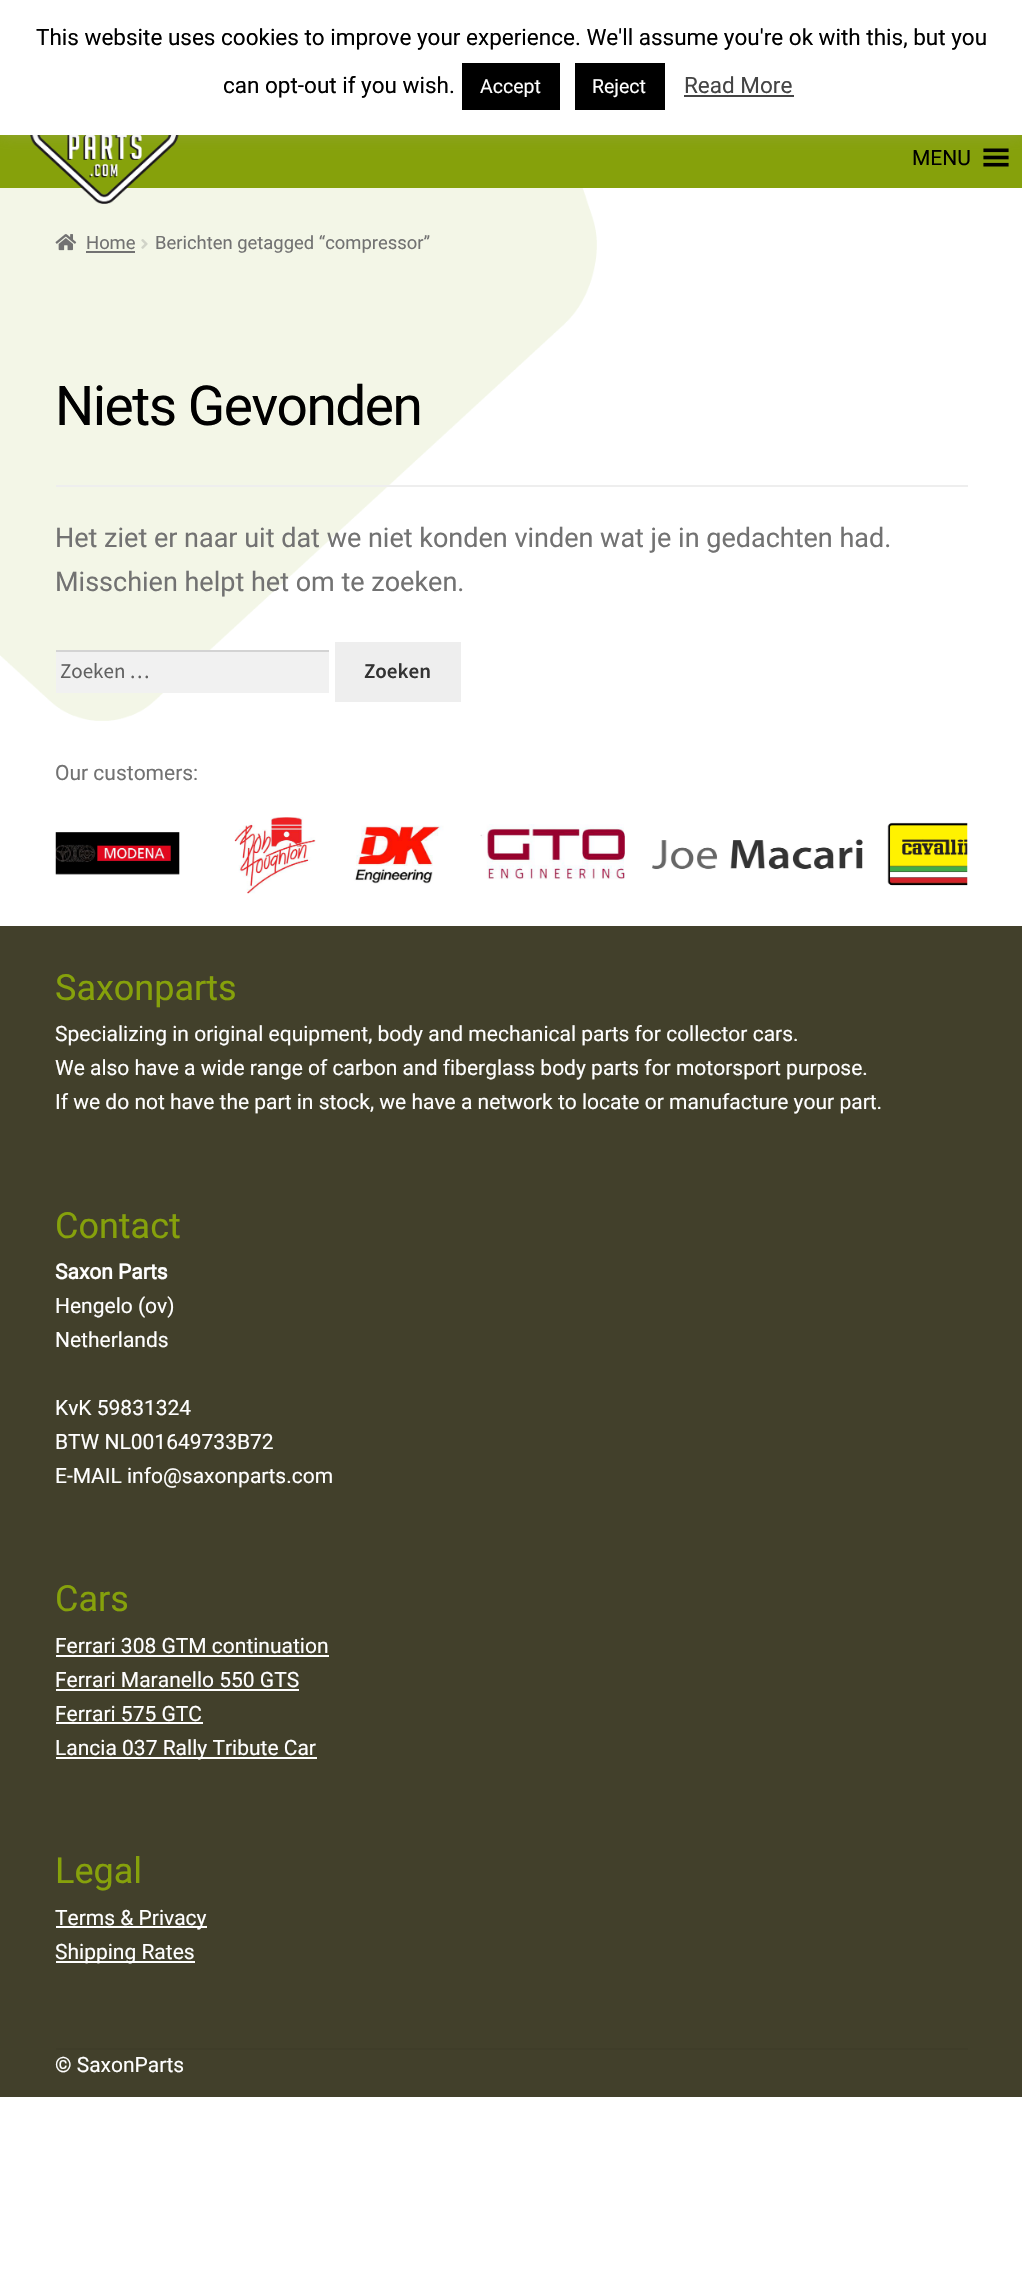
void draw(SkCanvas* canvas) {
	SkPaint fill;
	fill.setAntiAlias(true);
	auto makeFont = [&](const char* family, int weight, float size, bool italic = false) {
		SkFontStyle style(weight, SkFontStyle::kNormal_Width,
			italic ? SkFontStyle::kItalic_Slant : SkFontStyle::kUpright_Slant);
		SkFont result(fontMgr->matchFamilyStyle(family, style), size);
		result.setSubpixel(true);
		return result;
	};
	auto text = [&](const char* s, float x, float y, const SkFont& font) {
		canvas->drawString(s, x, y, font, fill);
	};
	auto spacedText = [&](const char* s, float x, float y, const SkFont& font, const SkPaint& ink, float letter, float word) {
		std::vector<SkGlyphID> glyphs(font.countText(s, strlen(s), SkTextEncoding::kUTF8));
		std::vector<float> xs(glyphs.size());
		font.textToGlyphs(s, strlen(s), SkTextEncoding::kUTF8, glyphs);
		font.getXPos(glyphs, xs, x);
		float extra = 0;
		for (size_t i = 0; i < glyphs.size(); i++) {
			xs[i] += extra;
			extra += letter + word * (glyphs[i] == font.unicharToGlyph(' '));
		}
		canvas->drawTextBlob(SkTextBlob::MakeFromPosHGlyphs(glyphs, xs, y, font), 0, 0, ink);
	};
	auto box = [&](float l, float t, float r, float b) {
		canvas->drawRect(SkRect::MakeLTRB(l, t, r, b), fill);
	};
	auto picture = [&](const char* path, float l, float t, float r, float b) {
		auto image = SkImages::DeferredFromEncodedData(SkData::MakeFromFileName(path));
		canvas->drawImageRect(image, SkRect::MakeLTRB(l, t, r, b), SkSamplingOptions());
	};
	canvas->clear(0xFFFFFFFF);
	picture("image0.png", 0, 188, 597, 721);
	fill.setColor(0xFF86A10B);
	box(0, 135, 1022, 188);
	picture("image1.png", 30, 135, 179, 204);
	picture("image2.png", 983, 148, 1009, 167);
	fill.setColor(0x4DACABAB);
	fill.setMaskFilter(SkMaskFilter::MakeBlur(kNormal_SkBlurStyle, 7.5f));
	canvas->drawRect(SkRect::MakeLTRB(0, -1, 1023, 134), fill);
	fill.setMaskFilter(nullptr);
	fill.setColor(0xFFFFFFFF);
	box(0, 0, 1022, 135);
	fill.setColor(0xFF000000);
	box(462, 63, 560, 110);
	box(575, 63, 665, 110);
	fill.setColor(0xFF444444);
	box(684, 95, 794, 97);
	picture("image3.png", 55, 234, 77, 251);
	fill.setColor(0xFF727272);
	box(86, 251, 135, 253);
	picture("image4.png", 141, 239, 148, 249);
	fill.setColor(0xFFEEEEEE);
	box(56, 485, 968, 487);
	fill.setColor(0xFFF1F1F1);
	box(56, 652, 329, 693);
	fill.setColor(0xFFD3D3D3);
	box(56, 650, 329, 652);
	fill.setColor(0xFFEEEEEE);
	box(335, 642, 461, 702);
	picture("image5.png", 55, 817, 968, 894);
	fill.setColor(0xFF42402B);
	box(0, 926, 1022, 2097);
	fill.setColor(0xFF3F3D29);
	box(56, 2048, 968, 2050);
	fill.setColor(0xFFFFFFFF);
	box(56, 1655, 329, 1657);
	box(56, 1689, 299, 1691);
	box(56, 1722, 203, 1724);
	box(56, 1757, 317, 1759);
	box(56, 1926, 207, 1928);
	box(56, 1961, 195, 1963);
	auto font1 = makeFont("Roboto", 400, 22.5f);
	fill.setColor(0xFF000000);
	text("This website uses cookies to improve your experience. We'll assume you're ok with this, but you", 36, 45, font1);
	text("can opt-out if you wish.", 223, 93, font1);
	auto font2 = makeFont("Roboto", 400, 19.5f);
	fill.setColor(0xFFFFFFFF);
	text("Accept", 480, 93, font2);
	text("Reject", 592, 93, font2);
	fill.setColor(0xFF444444);
	text("Read More", 684, 93, font1);
	auto font3 = makeFont("Roboto", 400, 21);
	fill.setColor(0xFF000000);
	text("MENU", 912, 165, font3);
	auto font4 = makeFont("Roboto", 400, 18.4f);
	fill.setColor(0xFF727272);
	text("Home", 86, 249, font4);
	text("Berichten getagged “compressor”", 155, 249, font4);
	auto font5 = makeFont("Roboto", 400, 55);
	fill.setColor(0xFF000000);
	spacedText("Niets Gevonden", 55, 425, font5, fill, -1.5f, 0);
	auto font6 = makeFont("Roboto", 400, 27);
	fill.setColor(0xFF727272);
	text("Het ziet er naar uit dat we niet konden vinden wat je in gedachten had.", 55, 547, font6);
	text("Misschien helpt het om te zoeken.", 55, 591, font6);
	auto font7 = makeFont("Source Sans Pro", 400, 21);
	fill.setColor(0xFF616161);
	text("Zoeken …", 60, 678, font7);
	auto font8 = makeFont("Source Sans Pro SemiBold", 600, 21);
	fill.setColor(0xFF333333);
	text("Zoeken", 364, 678, font8);
	fill.setColor(0xFF727272);
	text("Our customers:", 55, 780, font3);
	auto font9 = makeFont("Roboto", 400, 36);
	fill.setColor(0xFF86A10B);
	text("Saxonparts", 55, 1000, font9);
	fill.setColor(0xFFFFFFFF);
	text("Specializing in original equipment, body and mechanical parts for collector cars.", 55, 1041, font3);
	text("We also have a wide range of carbon and fiberglass body parts for motorsport purpose.", 55, 1075, font3);
	text("If we do not have the part in stock, we have a network to locate or manufacture your part.", 55, 1109, font3);
	fill.setColor(0xFF86A10B);
	text("Contact", 55, 1238, font9);
	auto font10 = makeFont("Roboto", 700, 21);
	fill.setColor(0xFFFFFFFF);
	text("Saxon Parts", 55, 1279, font10);
	text("Hengelo (ov)", 55, 1313, font3);
	text("Netherlands", 55, 1347, font3);
	text("KvK 59831324", 55, 1415, font3);
	text("BTW NL001649733B72", 55, 1449, font3);
	text("E-MAIL info@saxonparts.com", 55, 1483, font3);
	fill.setColor(0xFF86A10B);
	text("Cars", 55, 1611, font9);
	fill.setColor(0xFFFFFFFF);
	text("Ferrari 308 GTM continuation", 55, 1653, font3);
	text("Ferrari Maranello 550 GTS", 55, 1687, font3);
	text("Ferrari 575 GTC", 55, 1721, font3);
	text("Lancia 037 Rally Tribute Car", 55, 1755, font3);
	fill.setColor(0xFF86A10B);
	text("Legal", 55, 1883, font9);
	fill.setColor(0xFFFFFFFF);
	text("Terms & Privacy", 55, 1925, font3);
	text("Shipping Rates", 55, 1959, font3);
	text("© SaxonParts", 55, 2072, font3);
}
